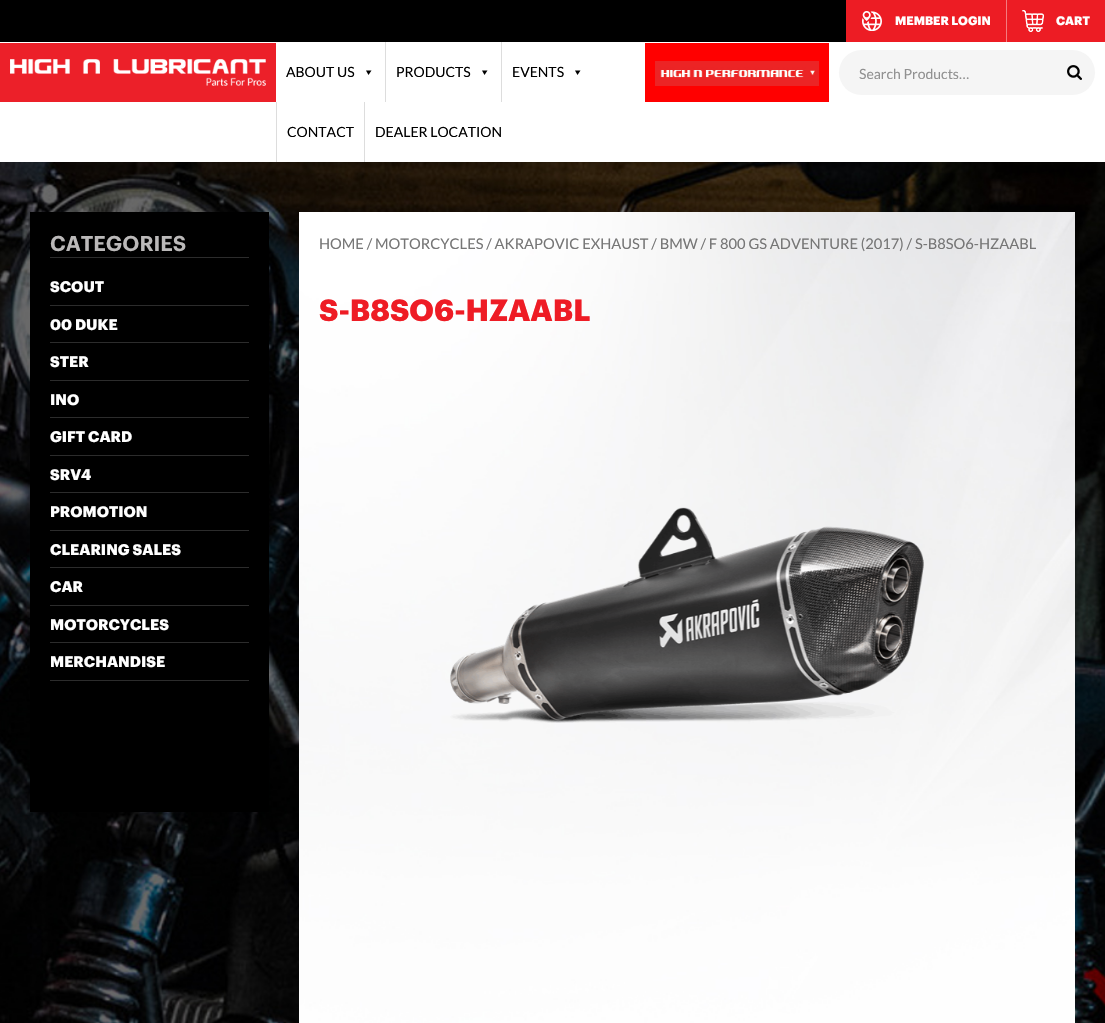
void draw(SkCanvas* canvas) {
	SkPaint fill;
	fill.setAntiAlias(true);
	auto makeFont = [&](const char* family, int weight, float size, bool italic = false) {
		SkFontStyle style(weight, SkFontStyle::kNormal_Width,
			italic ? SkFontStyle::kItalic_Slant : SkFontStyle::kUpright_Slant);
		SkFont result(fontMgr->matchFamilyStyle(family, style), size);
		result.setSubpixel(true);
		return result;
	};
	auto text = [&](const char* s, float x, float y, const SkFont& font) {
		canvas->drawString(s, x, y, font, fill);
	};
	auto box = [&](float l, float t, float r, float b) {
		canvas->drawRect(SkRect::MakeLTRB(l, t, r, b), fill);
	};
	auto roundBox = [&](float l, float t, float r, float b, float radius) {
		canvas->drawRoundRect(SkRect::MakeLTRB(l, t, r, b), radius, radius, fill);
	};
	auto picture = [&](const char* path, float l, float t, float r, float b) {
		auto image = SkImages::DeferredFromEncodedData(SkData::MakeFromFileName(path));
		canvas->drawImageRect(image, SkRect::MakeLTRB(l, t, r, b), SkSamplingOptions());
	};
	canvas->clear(0xFFFFFFFF);
	fill.setColor(0xFF000000);
	box(0, 0, 846, 42);
	fill.setColor(0xFFED1C24);
	box(846, 0, 1006, 42);
	fill.setColor(0xFFF47B7F);
	box(1006, 0, 1007, 42);
	picture("image0.png", 862, 11, 882, 31);
	fill.setColor(0xFFED1C24);
	box(1007, 0, 1105, 42);
	picture("image1.png", 1022, 10, 1044, 32);
	fill.setColor(0xFFEC2029);
	box(0, 43, 276, 102);
	picture("image2.png", 10, 59, 266, 86);
	fill.setColor(0xFF000000);
	canvas->drawPath(SkPathBuilder().moveTo(371.5f, 70.5f).lineTo(368.5f, 75).lineTo(366, 70.5f).close().detach(), fill);
	fill.setColor(0xFFDDDDDD);
	box(385, 42, 386, 102);
	fill.setColor(0xFF000000);
	canvas->drawPath(SkPathBuilder().moveTo(487.5f, 70.5f).lineTo(484.5f, 75).lineTo(482, 70.5f).close().detach(), fill);
	fill.setColor(0xFFDDDDDD);
	box(501, 42, 502, 102);
	fill.setColor(0xFF000000);
	canvas->drawPath(SkPathBuilder().moveTo(580.5f, 70.5f).lineTo(577.5f, 75).lineTo(575, 70.5f).close().detach(), fill);
	fill.setColor(0xFFDDDDDD);
	box(276, 102, 277, 162);
	box(364, 102, 365, 162);
	fill.setColor(0xFFFF0000);
	box(645, 43, 829, 102);
	picture("image3.png", 655, 61, 819, 86);
	fill.setColor(0xFFF5F5F5);
	roundBox(839, 50, 1095, 95, 22.5f);
	picture("image4.png", 1067, 65, 1082, 80);
	picture("image5.png", 0, 162, 1105, 1023);
	fill.setColor(0xFF000000);
	box(30, 212, 269, 812);
	fill.setColor(0xFF2C2C2C);
	box(50, 257, 249, 258);
	box(50, 305, 249, 306);
	box(50, 342, 249, 343);
	box(50, 380, 249, 381);
	box(50, 417, 249, 418);
	box(50, 455, 249, 456);
	box(50, 492, 249, 493);
	box(50, 530, 249, 531);
	box(50, 567, 249, 568);
	box(50, 605, 249, 606);
	box(50, 642, 249, 643);
	box(50, 680, 249, 681);
	picture("image6.png", 299, 212, 1075, 1023);
	picture("image7.png", 450, 507, 924, 723);
	auto font1 = makeFont("Graphik", 700, 12);
	fill.setColor(0xFFFFFFFF);
	text("MEMBER LOGIN", 895, 25, font1);
	text("CART", 1056, 25, font1);
	auto font2 = makeFont("Lato", 400, 14);
	fill.setColor(0xFF000000);
	text("ABOUT US", 286, 77, font2);
	text("PRODUCTS", 396, 77, font2);
	text("EVENTS", 512, 77, font2);
	text("CONTACT", 287, 137, font2);
	text("DEALER LOCATION", 375, 137, font2);
	fill.setColor(0xFF919191);
	text("Search Products…", 859, 79, font2);
	auto font3 = makeFont("Graphik", 600, 21);
	fill.setColor(0xFFBBB9B9);
	text("CATEGORIES", 50, 251, font3);
	auto font4 = makeFont("Graphik", 700, 15);
	fill.setColor(0xFFFFFFFF);
	text("SCOUT", 50, 292, font4);
	text("00 DUKE", 50, 330, font4);
	text("STER", 50, 367, font4);
	text("INO", 50, 405, font4);
	text("GIFT CARD", 50, 442, font4);
	text("SRV4", 50, 480, font4);
	text("PROMOTION", 50, 517, font4);
	text("CLEARING SALES", 50, 555, font4);
	text("CAR", 50, 592, font4);
	text("MOTORCYCLES", 50, 630, font4);
	text("MERCHANDISE", 50, 667, font4);
	auto font5 = makeFont("Lato", 400, 14.7f);
	fill.setColor(0xFF767676);
	text("HOME / MOTORCYCLES / AKRAPOVIC EXHAUST / BMW / F 800 GS ADVENTURE (2017) / S-B8SO6-HZAABL", 319, 249, font5);
	auto font6 = makeFont("Graphik", 700, 30);
	fill.setColor(0xFFEE1C25);
	text("S-B8SO6-HZAABL", 319, 321, font6);
}
